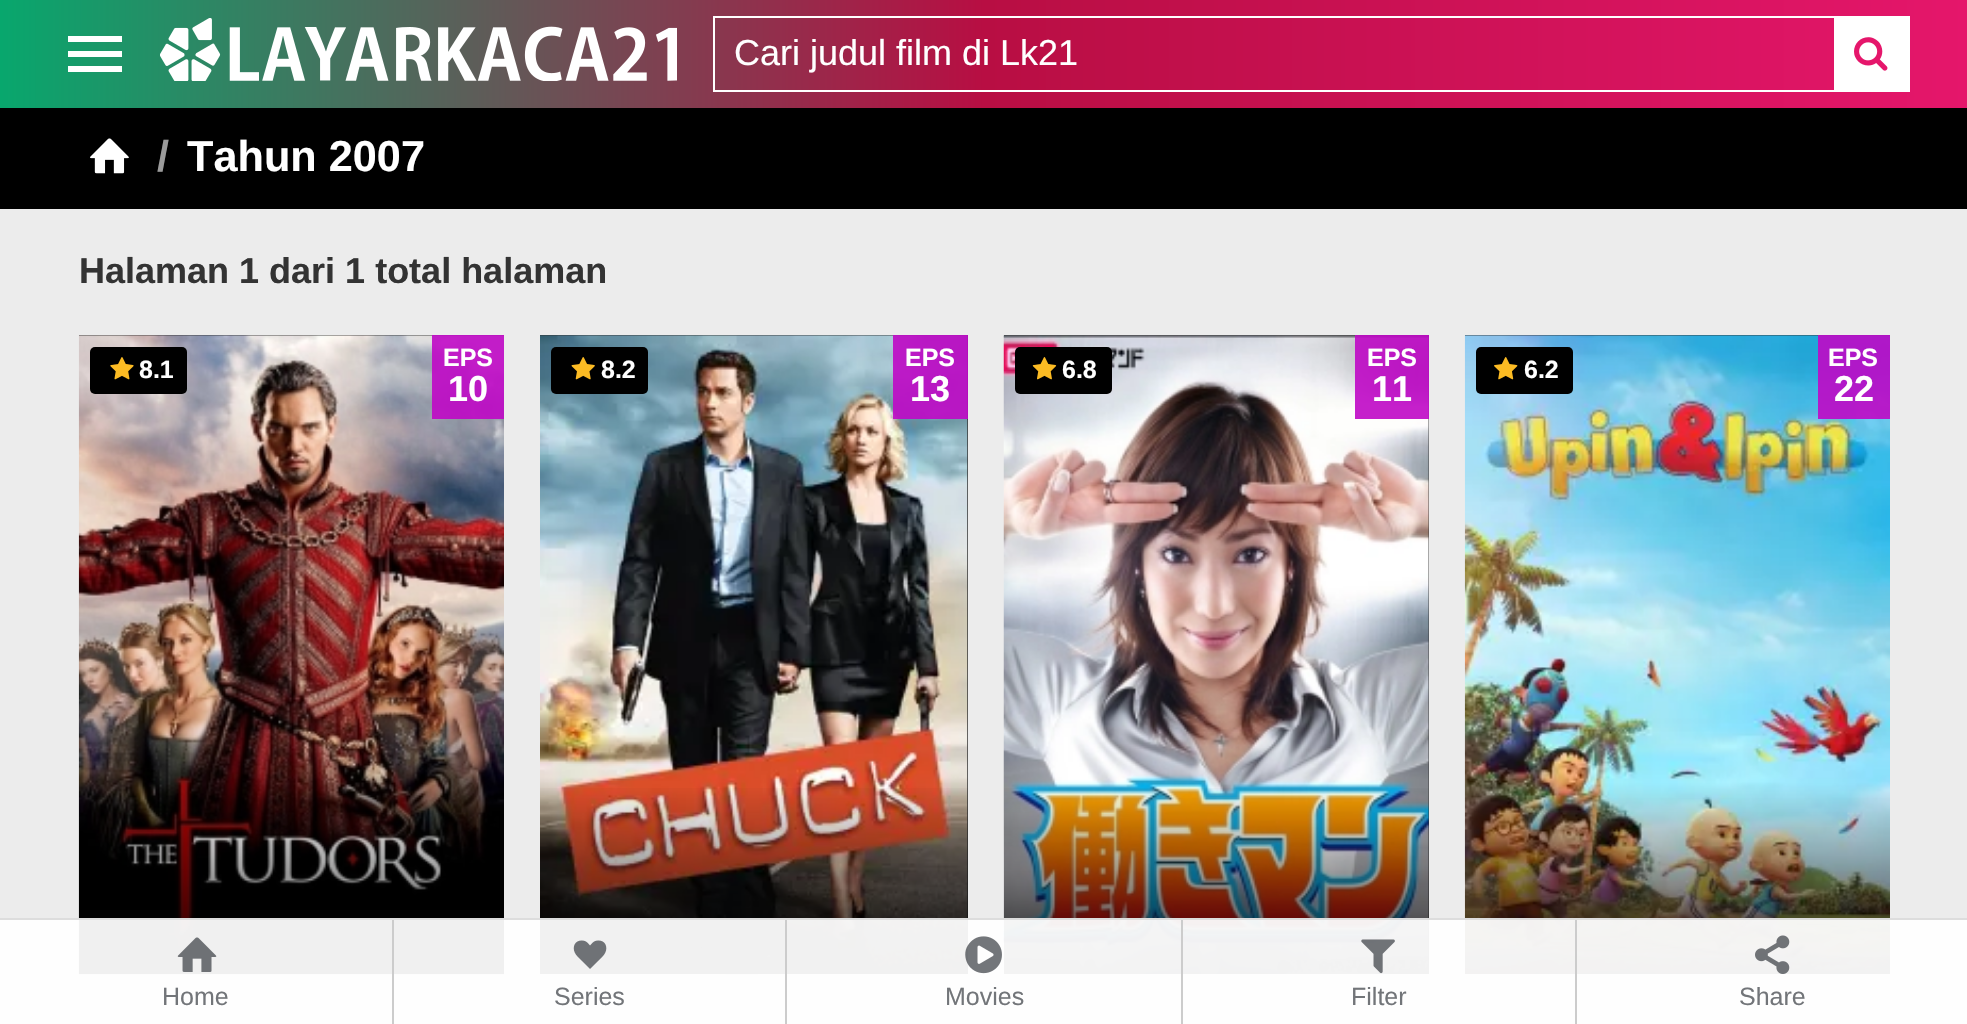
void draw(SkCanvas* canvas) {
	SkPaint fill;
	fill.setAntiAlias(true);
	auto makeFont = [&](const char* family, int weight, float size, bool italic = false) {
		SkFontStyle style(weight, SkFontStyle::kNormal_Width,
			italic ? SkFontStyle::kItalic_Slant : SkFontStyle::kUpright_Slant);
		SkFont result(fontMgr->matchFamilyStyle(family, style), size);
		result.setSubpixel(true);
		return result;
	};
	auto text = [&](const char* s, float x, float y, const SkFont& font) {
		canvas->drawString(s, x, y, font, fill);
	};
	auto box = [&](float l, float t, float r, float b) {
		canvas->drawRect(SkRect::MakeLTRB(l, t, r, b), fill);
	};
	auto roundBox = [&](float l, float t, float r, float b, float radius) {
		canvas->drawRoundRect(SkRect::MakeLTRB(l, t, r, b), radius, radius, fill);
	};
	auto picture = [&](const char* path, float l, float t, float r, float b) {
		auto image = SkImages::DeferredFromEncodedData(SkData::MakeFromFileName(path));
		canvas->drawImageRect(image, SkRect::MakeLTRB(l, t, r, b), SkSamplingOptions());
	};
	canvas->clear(0xFFECECEC);
	{
		const SkColor colors[] = {0xFF08A76D, 0xFFB80E43, 0xFFE5166B};
		const float stops[] = {0, 0.5f, 1};
		const SkPoint ends[] = {{0, 54}, {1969, 54}};
		fill.setShader(SkGradientShader::MakeLinear(ends, colors, stops, 3, SkTileMode::kClamp));
		fill.setAlpha(255);
	}
	box(0, 0, 1967, 108);
	fill.setShader(nullptr);
	fill.setColor(0xFFFFFFFF);
	canvas->drawPath(SkPathBuilder().moveTo(68, 72).lineTo(122, 72).lineTo(122, 66).lineTo(68, 66).close().moveTo(68, 57).lineTo(122, 57).lineTo(122, 51).lineTo(68, 51).close().moveTo(68, 36).lineTo(68, 42).lineTo(122, 42).lineTo(122, 36).close().detach(), fill);
	picture("image0.png", 160, 18, 677, 81);
	box(713, 16, 1834, 18);
	box(713, 90, 1834, 92);
	box(713, 16, 715, 92);
	box(1834, 16, 1910, 92);
	picture("image1.png", 1854, 37, 1888, 71);
	fill.setColor(0xFF000000);
	box(0, 108, 1967, 209);
	picture("image2.png", 90, 138, 129, 174);
	fill.setColor(0xFF333333);
	box(79, 335, 504, 336);
	picture("image3.png", 78, 335, 504, 975);
	fill.setColor(0xFF000000);
	roundBox(90, 347, 187, 394, 5);
	picture("image4.png", 110, 357, 134, 380);
	fill.setColor(0xE6BF08C5);
	box(432, 335, 504, 419);
	fill.setColor(0xFF333333);
	box(540, 335, 968, 974);
	picture("image5.png", 540, 335, 968, 975);
	fill.setColor(0xFF000000);
	roundBox(551, 347, 648, 394, 5);
	picture("image6.png", 571, 357, 595, 380);
	fill.setColor(0xE6BF08C5);
	box(893, 335, 968, 419);
	{
		const SkColor colors[] = {0xCC000000, 0x00000000};
		const float stops[] = {0, 1};
		const SkPoint ends[] = {{754, 974}, {754, 783}};
		fill.setShader(SkGradientShader::MakeLinear(ends, colors, stops, 2, SkTileMode::kClamp));
		fill.setAlpha(255);
	}
	box(540, 788, 968, 974);
	fill.setShader(nullptr);
	fill.setColor(0xFF333333);
	box(1004, 335, 1429, 974);
	picture("image7.png", 1003, 335, 1429, 975);
	fill.setColor(0xFF000000);
	roundBox(1015, 347, 1112, 394, 5);
	picture("image8.png", 1032, 357, 1057, 380);
	fill.setColor(0xE6BF08C5);
	box(1355, 335, 1429, 419);
	{
		const SkColor colors[] = {0xCC000000, 0x00000000};
		const float stops[] = {0, 1};
		const SkPoint ends[] = {{1216, 974}, {1216, 783}};
		fill.setShader(SkGradientShader::MakeLinear(ends, colors, stops, 2, SkTileMode::kClamp));
		fill.setAlpha(255);
	}
	box(1004, 788, 1429, 974);
	fill.setShader(nullptr);
	fill.setColor(0xFF333333);
	box(1465, 335, 1890, 336);
	picture("image9.png", 1464, 335, 1890, 975);
	fill.setColor(0xFF000000);
	roundBox(1476, 347, 1573, 394, 5);
	picture("image10.png", 1494, 357, 1518, 380);
	fill.setColor(0xE6BF08C5);
	box(1818, 335, 1890, 419);
	fill.setColor(0xF0FFFFFF);
	box(0, 920, 1967, 1024);
	fill.setColor(0xFFDDDDDD);
	box(0, 918, 1967, 920);
	fill.setColor(0xFFCCCCCC);
	box(392, 920, 394, 1024);
	picture("image11.png", 177, 937, 217, 972);
	box(785, 920, 787, 1024);
	picture("image12.png", 573, 940, 607, 969);
	box(1181, 920, 1183, 1024);
	picture("image13.png", 965, 936, 1002, 974);
	box(1575, 920, 1577, 1024);
	picture("image14.png", 1361, 939, 1395, 974);
	picture("image15.png", 1755, 935, 1790, 974);
	auto font1 = makeFont("Liberation Sans", 400, 36);
	fill.setColor(0xFFFFFFFF);
	text("Cari judul film di Lk21", 734, 65, font1);
	auto font2 = makeFont("Liberation Sans", 700, 43.25f);
	fill.setColor(0xFF9B9B9B);
	text("/", 157, 171, font2);
	fill.setColor(0xFFFFFFFF);
	text("Tahun 2007", 187, 171, font2);
	auto font3 = makeFont("Liberation Sans", 700, 36);
	fill.setColor(0xFF333333);
	text("Halaman 1 dari 1 total halaman", 79, 283, font3);
	auto font4 = makeFont("Liberation Sans", 700, 25);
	fill.setColor(0xFFFFFFFF);
	text("8.1", 139, 378, font4);
	text("EPS", 443, 366, font4);
	text("10", 448, 401, font3);
	text("8.2", 601, 378, font4);
	text("EPS", 905, 366, font4);
	text("13", 910, 401, font3);
	text("6.8", 1062, 378, font4);
	text("EPS", 1367, 366, font4);
	text("11", 1372, 401, font3);
	text("6.2", 1524, 378, font4);
	text("EPS", 1828, 366, font4);
	text("22", 1834, 401, font3);
	auto font5 = makeFont("Liberation Sans", 400, 25);
	fill.setColor(0xFF727579);
	text("Home", 162, 1005, font5);
	text("Series", 554, 1005, font5);
	text("Movies", 945, 1005, font5);
	text("Filter", 1351, 1005, font5);
	text("Share", 1739, 1005, font5);
}
